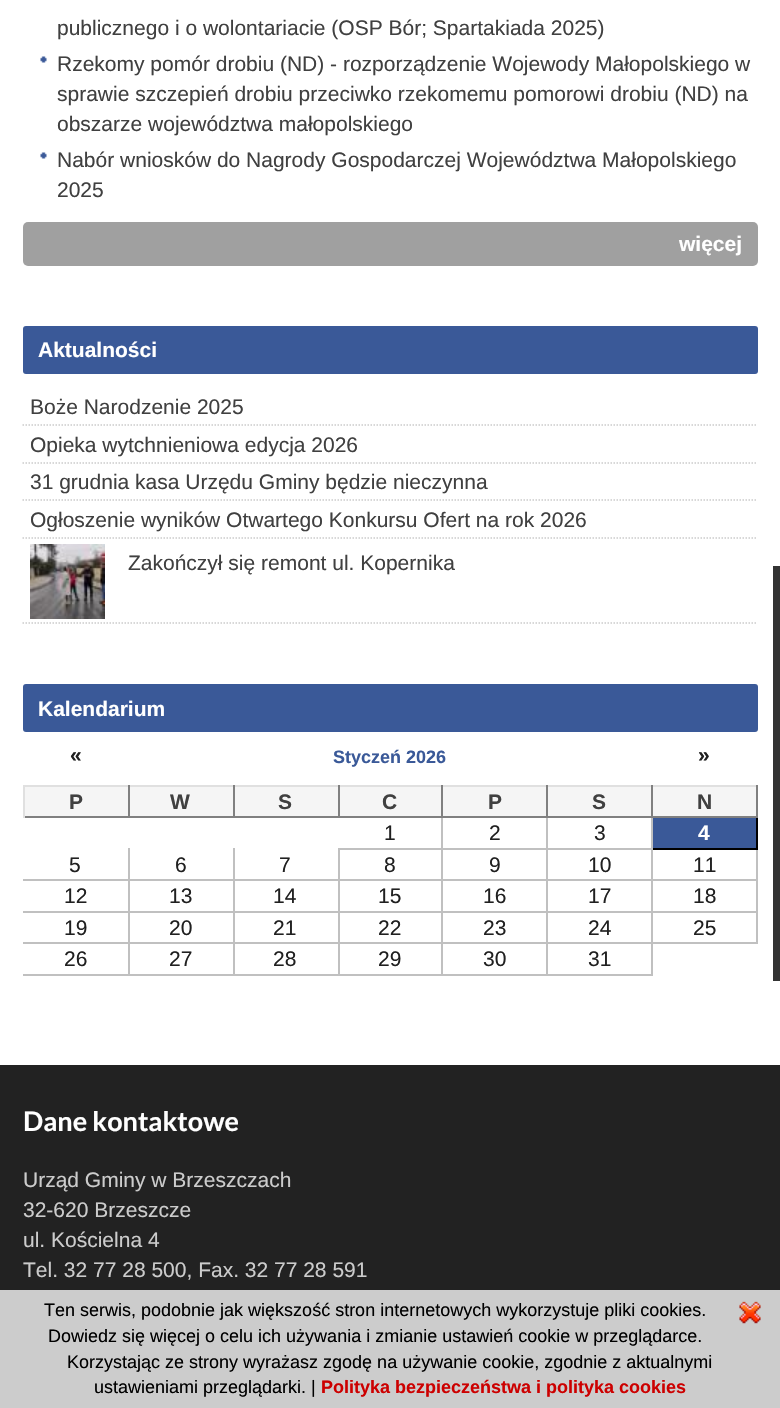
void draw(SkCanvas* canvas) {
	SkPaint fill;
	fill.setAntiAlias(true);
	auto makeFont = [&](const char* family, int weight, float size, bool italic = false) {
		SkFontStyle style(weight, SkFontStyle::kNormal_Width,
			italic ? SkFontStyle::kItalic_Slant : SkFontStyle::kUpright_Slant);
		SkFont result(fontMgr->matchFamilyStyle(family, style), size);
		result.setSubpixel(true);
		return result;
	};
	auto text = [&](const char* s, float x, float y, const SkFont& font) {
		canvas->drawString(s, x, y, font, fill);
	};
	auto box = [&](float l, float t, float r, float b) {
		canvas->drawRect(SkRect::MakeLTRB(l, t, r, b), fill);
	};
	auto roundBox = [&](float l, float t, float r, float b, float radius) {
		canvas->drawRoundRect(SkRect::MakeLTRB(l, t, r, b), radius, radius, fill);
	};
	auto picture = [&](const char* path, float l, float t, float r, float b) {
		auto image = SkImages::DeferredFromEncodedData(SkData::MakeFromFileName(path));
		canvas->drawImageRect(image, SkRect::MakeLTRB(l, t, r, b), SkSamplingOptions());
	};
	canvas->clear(0xFFFFFFFF);
	picture("image0.png", 40, 56, 47, 63);
	picture("image0.png", 40, 152, 47, 159);
	fill.setColor(0xFFA0A0A0);
	roundBox(23, 222, 758, 266, 5);
	fill.setColor(0xFF3A5998);
	roundBox(23, 326, 758, 374, 3);
	fill.setStyle(SkPaint::kStroke_Style);
	fill.setStrokeWidth(1.5f);
	fill.setColor(0xFFCCCCCC);
	fill.setPathEffect(SkDashPathEffect::Make({{1.5f, 1.5f}}, 0));
	canvas->drawPath(SkPathBuilder().moveTo(22.5f, 425).lineTo(757.5f, 425).detach(), fill);
	fill.setPathEffect(nullptr);
	fill.setPathEffect(SkDashPathEffect::Make({{1.5f, 1.5f}}, 0));
	canvas->drawPath(SkPathBuilder().moveTo(22.5f, 463).lineTo(757.5f, 463).detach(), fill);
	fill.setPathEffect(nullptr);
	fill.setPathEffect(SkDashPathEffect::Make({{1.5f, 1.5f}}, 0));
	canvas->drawPath(SkPathBuilder().moveTo(22.5f, 500).lineTo(757.5f, 500).detach(), fill);
	fill.setPathEffect(nullptr);
	fill.setPathEffect(SkDashPathEffect::Make({{1.5f, 1.5f}}, 0));
	canvas->drawPath(SkPathBuilder().moveTo(22.5f, 538).lineTo(757.5f, 538).detach(), fill);
	fill.setPathEffect(nullptr);
	fill.setPathEffect(SkDashPathEffect::Make({{1.5f, 1.5f}}, 0));
	canvas->drawPath(SkPathBuilder().moveTo(22.5f, 623).lineTo(757.5f, 623).detach(), fill);
	fill.setPathEffect(nullptr);
	picture("image1.png", 30, 544, 105, 619);
	fill.setStyle(SkPaint::kFill_Style);
	fill.setColor(0xFF3A5998);
	roundBox(23, 684, 758, 732, 3);
	fill.setColor(0xFFF5F5F5);
	box(25, 787, 128, 816);
	fill.setColor(0xFFE0E0E0);
	box(23, 785, 758, 787);
	fill.setColor(0xFFC0C0C0);
	box(756, 848, 758, 944);
	fill.setColor(0xFF000000);
	box(756, 816, 758, 849);
	fill.setColor(0xFF808080);
	box(756, 785, 758, 818);
	fill.setColor(0xFFC0C0C0);
	box(651, 942, 653, 975);
	box(651, 942, 758, 944);
	box(651, 911, 653, 944);
	box(651, 911, 758, 913);
	box(651, 879, 653, 912);
	box(651, 879, 758, 881);
	box(651, 848, 653, 881);
	fill.setColor(0xFF000000);
	box(651, 848, 758, 850);
	fill.setColor(0xFFC0C0C0);
	box(651, 816, 653, 849);
	fill.setColor(0xFF808080);
	box(651, 816, 758, 818);
	box(651, 785, 653, 818);
	fill.setColor(0xFFC0C0C0);
	box(546, 974, 653, 976);
	box(546, 942, 548, 975);
	box(546, 942, 653, 944);
	box(546, 911, 548, 944);
	box(546, 911, 653, 913);
	box(546, 879, 548, 912);
	box(546, 879, 653, 881);
	box(546, 848, 548, 881);
	box(546, 848, 653, 850);
	box(546, 816, 548, 849);
	fill.setColor(0xFF808080);
	box(546, 816, 653, 818);
	box(546, 785, 548, 818);
	fill.setColor(0xFFC0C0C0);
	box(441, 974, 548, 976);
	box(441, 942, 443, 975);
	box(441, 942, 548, 944);
	box(441, 911, 443, 944);
	box(441, 911, 548, 913);
	box(441, 879, 443, 912);
	box(441, 879, 548, 881);
	box(441, 848, 443, 881);
	box(441, 848, 548, 850);
	box(441, 816, 443, 849);
	fill.setColor(0xFF808080);
	box(441, 816, 548, 818);
	box(441, 785, 443, 818);
	box(338, 816, 443, 818);
	box(338, 785, 340, 818);
	box(233, 816, 339, 818);
	box(233, 785, 235, 818);
	box(128, 816, 234, 818);
	box(128, 785, 130, 818);
	box(23, 816, 129, 818);
	fill.setColor(0xFFE0E0E0);
	box(23, 785, 25, 818);
	fill.setColor(0xFFF5F5F5);
	box(130, 787, 233, 816);
	box(235, 787, 338, 816);
	box(340, 787, 441, 816);
	box(443, 787, 546, 816);
	box(548, 787, 651, 816);
	box(653, 787, 756, 816);
	fill.setColor(0xFFC0C0C0);
	box(338, 974, 443, 976);
	box(338, 942, 340, 975);
	box(338, 942, 443, 944);
	box(338, 911, 340, 944);
	box(338, 911, 443, 913);
	box(338, 879, 340, 912);
	box(338, 879, 443, 881);
	box(338, 848, 340, 881);
	box(338, 848, 443, 850);
	fill.setColor(0xFF3A5998);
	box(653, 818, 756, 848);
	fill.setColor(0xFFC0C0C0);
	box(233, 974, 339, 976);
	box(233, 942, 235, 975);
	box(233, 942, 339, 944);
	box(233, 911, 235, 944);
	box(233, 911, 339, 913);
	box(233, 879, 235, 912);
	box(233, 879, 339, 881);
	box(233, 848, 235, 881);
	box(128, 974, 234, 976);
	box(128, 942, 130, 975);
	box(128, 942, 234, 944);
	box(128, 911, 130, 944);
	box(128, 911, 234, 913);
	box(128, 879, 130, 912);
	box(128, 879, 234, 881);
	box(128, 848, 130, 881);
	box(23, 879, 129, 881);
	box(23, 911, 129, 913);
	box(23, 942, 129, 944);
	box(23, 974, 129, 976);
	fill.setColor(0xFF222222);
	box(0, 1065, 780, 1290);
	fill.setColor(0xFF333333);
	box(773, 566, 780, 981);
	fill.setColor(0xFFCCCCCC);
	box(0, 1290, 780, 1408);
	picture("image2.png", 739, 1301, 761, 1324);
	auto font1 = makeFont("Liberation Sans", 400, 21);
	fill.setColor(0xFF404040);
	text("publicznego i o wolontariacie (OSP Bór; Spartakiada 2025)", 57, 35, font1);
	text("Rzekomy pomór drobiu (ND) - rozporządzenie Wojewody Małopolskiego w", 57, 71, font1);
	text("sprawie szczepień drobiu przeciwko rzekomemu pomorowi drobiu (ND) na", 57, 101, font1);
	text("obszarze województwa małopolskiego", 57, 131, font1);
	text("Nabór wniosków do Nagrody Gospodarczej Województwa Małopolskiego", 57, 167, font1);
	text("2025", 57, 197, font1);
	auto font2 = makeFont("Liberation Sans", 700, 21);
	fill.setColor(0xFFFFFFFF);
	text("więcej", 679, 251, font2);
	text("Aktualności", 38, 357, font2);
	fill.setColor(0xFF404040);
	text("Boże Narodzenie 2025", 30, 414, font1);
	text("Opieka wytchnieniowa edycja 2026", 30, 452, font1);
	text("31 grudnia kasa Urzędu Gminy będzie nieczynna", 30, 489, font1);
	text("Ogłoszenie wyników Otwartego Konkursu Ofert na rok 2026", 30, 527, font1);
	text("Zakończył się remont ul. Kopernika", 128, 570, font1);
	fill.setColor(0xFFFFFFFF);
	text("Kalendarium", 38, 716, font2);
	fill.setColor(0xFF202020);
	text("«", 70, 762, font2);
	auto font3 = makeFont("Liberation Sans", 700, 18);
	fill.setColor(0xFF3A5998);
	text("Styczeń 2026", 333, 763, font3);
	fill.setColor(0xFF202020);
	text("»", 698, 762, font2);
	fill.setColor(0xFF404040);
	text("P", 69, 809, font2);
	text("W", 170, 809, font2);
	text("S", 278, 809, font2);
	text("C", 382, 809, font2);
	text("P", 488, 809, font2);
	text("S", 592, 809, font2);
	text("N", 697, 809, font2);
	fill.setColor(0xFF202020);
	text("1", 384, 840, font1);
	text("2", 489, 840, font1);
	text("3", 594, 840, font1);
	fill.setColor(0xFFFFFFFF);
	text("4", 698, 840, font2);
	fill.setColor(0xFF202020);
	text("5", 69, 872, font1);
	text("6", 175, 872, font1);
	text("7", 279, 872, font1);
	text("8", 384, 872, font1);
	text("9", 489, 872, font1);
	text("10", 588, 872, font1);
	text("11", 693, 872, font1);
	text("12", 64, 903, font1);
	text("13", 169, 903, font1);
	text("14", 273, 903, font1);
	text("15", 378, 903, font1);
	text("16", 483, 903, font1);
	text("17", 588, 903, font1);
	text("18", 693, 903, font1);
	text("19", 64, 935, font1);
	text("20", 169, 935, font1);
	text("21", 273, 935, font1);
	text("22", 378, 935, font1);
	text("23", 483, 935, font1);
	text("24", 588, 935, font1);
	text("25", 693, 935, font1);
	text("26", 64, 966, font1);
	text("27", 169, 966, font1);
	text("28", 273, 966, font1);
	text("29", 378, 966, font1);
	text("30", 483, 966, font1);
	text("31", 588, 966, font1);
	auto font4 = makeFont("Lato", 700, 27);
	fill.setColor(0xFFFFFFFF);
	text("Dane kontaktowe", 23, 1131, font4);
	fill.setColor(0xFFCCCCCC);
	text("Urząd Gminy w Brzeszczach", 23, 1187, font1);
	text("32-620 Brzeszcze", 23, 1217, font1);
	text("ul. Kościelna 4", 23, 1247, font1);
	text("Tel. 32 77 28 500, Fax. 32 77 28 591", 23, 1277, font1);
	auto font5 = makeFont("Liberation Sans", 400, 18);
	fill.setColor(0xFF000000);
	text("Ten serwis, podobnie jak większość stron internetowych wykorzystuje pliki cookies.", 44, 1316, font5);
	text("Dowiedz się więcej o celu ich używania i zmianie ustawień cookie w przeglądarce.", 48, 1342, font5);
	text("Korzystając ze strony wyrażasz zgodę na używanie cookie, zgodnie z aktualnymi", 67, 1368, font5);
	text("ustawieniami przeglądarki. |", 94, 1393, font5);
	fill.setColor(0xFFCC0000);
	text("Polityka bezpieczeństwa i polityka cookies", 321, 1393, font3);
}
